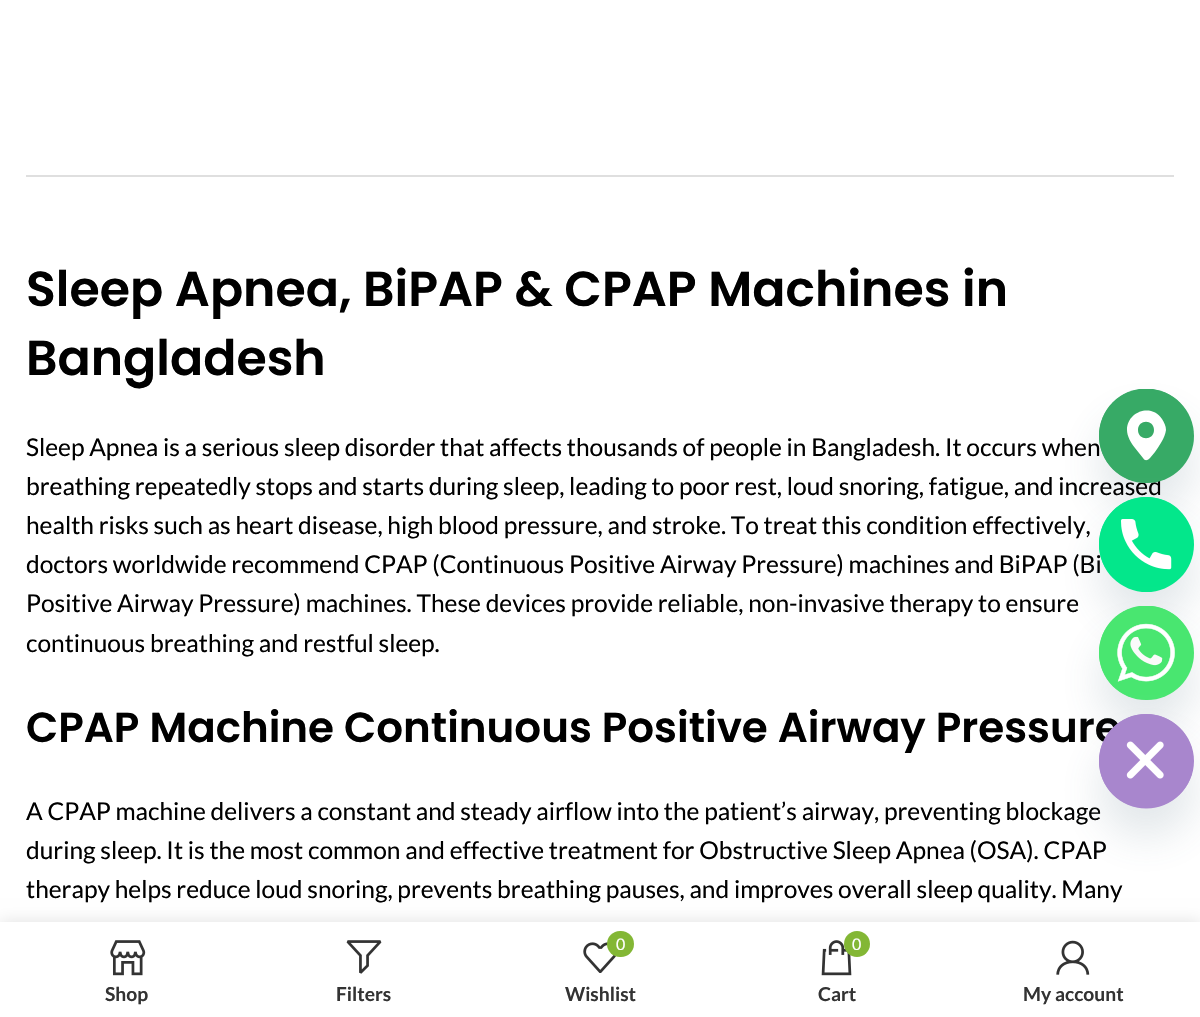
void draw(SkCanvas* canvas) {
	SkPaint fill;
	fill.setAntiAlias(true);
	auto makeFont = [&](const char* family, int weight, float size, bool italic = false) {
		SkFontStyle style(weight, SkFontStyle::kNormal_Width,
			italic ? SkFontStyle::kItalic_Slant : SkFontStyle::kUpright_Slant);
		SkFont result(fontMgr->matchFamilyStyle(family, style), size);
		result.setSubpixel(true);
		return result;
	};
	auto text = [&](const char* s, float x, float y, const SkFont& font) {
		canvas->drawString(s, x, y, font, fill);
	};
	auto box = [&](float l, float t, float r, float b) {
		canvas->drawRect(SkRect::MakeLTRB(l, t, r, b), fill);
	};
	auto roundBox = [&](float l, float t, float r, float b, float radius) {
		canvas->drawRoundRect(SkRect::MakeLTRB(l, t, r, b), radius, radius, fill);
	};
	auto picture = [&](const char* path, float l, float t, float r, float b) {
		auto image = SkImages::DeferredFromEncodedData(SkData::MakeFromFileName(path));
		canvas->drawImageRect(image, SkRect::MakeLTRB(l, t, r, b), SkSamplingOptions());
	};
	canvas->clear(0xFFFFFFFF);
	fill.setColor(0xFFDFDFDF);
	box(26, 175, 1174, 177);
	fill.setColor(0x2949687E);
	fill.setMaskFilter(SkMaskFilter::MakeBlur(kNormal_SkBlurStyle, 21));
	canvas->drawRoundRect(SkRect::MakeLTRB(1099, 417, 1194, 511), 47, 47, fill);
	fill.setMaskFilter(nullptr);
	fill.setColor(0x1F000000);
	fill.setMaskFilter(SkMaskFilter::MakeBlur(kNormal_SkBlurStyle, 8));
	canvas->drawRect(SkRect::MakeLTRB(0, 922, 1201, 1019), fill);
	fill.setMaskFilter(nullptr);
	fill.setColor(0xFFFFFFFF);
	box(0, 922, 1200, 1017);
	picture("image3.png", 110, 940, 146, 976);
	picture("image4.png", 346, 940, 382, 974);
	picture("image5.png", 583, 942, 616, 973);
	fill.setColor(0xFF83B735);
	roundBox(607, 931, 634, 957, 13);
	picture("image6.png", 821, 940, 852, 976);
	canvas->drawCircle(857, 944, 13, fill);
	picture("image7.png", 1056, 940, 1090, 975);
	auto font1 = makeFont("Poppins", 600, 49);
	fill.setColor(0xFF000000);
	text("Sleep Apnea, BiPAP & CPAP Machines in", 26, 306, font1);
	text("Bangladesh", 26, 375, font1);
	auto font2 = makeFont("Lato", 400, 24.5f);
	text("Sleep Apnea is a serious sleep disorder that affects thousands of people in Bangladesh. It occurs when", 26, 456, font2);
	text("breathing repeatedly stops and starts during sleep, leading to poor rest, loud snoring, fatigue, and increased", 26, 495, font2);
	text("health risks such as heart disease, high blood pressure, and stroke. To treat this condition effectively,", 26, 534, font2);
	text("doctors worldwide recommend CPAP (Continuous Positive Airway Pressure) machines and BiPAP (Bi", 26, 573, font2);
	text("Positive Airway Pressure) machines. These devices provide reliable, non-invasive therapy to ensure", 26, 612, font2);
	text("continuous breathing and restful sleep.", 26, 652, font2);
	auto font3 = makeFont("Poppins", 600, 42);
	text("CPAP Machine Continuous Positive Airway Pressure", 26, 742, font3);
	text("A CPAP machine delivers a constant and steady airflow into the patient’s airway, preventing blockage", 26, 820, font2);
	text("during sleep. It is the most common and effective treatment for Obstructive Sleep Apnea (OSA). CPAP", 26, 859, font2);
	text("therapy helps reduce loud snoring, prevents breathing pauses, and improves overall sleep quality. Many", 26, 898, font2);
	fill.setColor(0xFF37AA66);
	roundBox(1099, 389, 1194, 483, 47);
	canvas->save();
	canvas->clipRect(SkRect::MakeLTRB(1099, 389, 1194, 483));
	canvas->drawCircle(1146, 435.5f, 47, fill);
	canvas->restore();
	fill.setColor(0xFFFFFFFF);
	canvas->drawPath(SkPathBuilder(SkPathFillType::kEvenOdd).moveTo(1127, 430).cubicTo(1127, 411, 1152, 403, 1162, 419).cubicTo(1164, 422, 1166, 426, 1166, 430).cubicTo(1165, 438, 1159, 446, 1155, 452).lineTo(1150, 458).cubicTo(1147, 461, 1145, 461, 1143, 458).lineTo(1135, 448).cubicTo(1131, 443, 1127, 436, 1127, 430).close().moveTo(1154, 430).cubicTo(1154, 441, 1138, 441, 1138, 430).cubicTo(1138, 419, 1154, 419, 1154, 430).close().detach(), fill);
	fill.setColor(0x2949687E);
	fill.setMaskFilter(SkMaskFilter::MakeBlur(kNormal_SkBlurStyle, 21));
	canvas->drawRoundRect(SkRect::MakeLTRB(1099, 525, 1194, 620), 47.5f, 47.5f, fill);
	fill.setMaskFilter(nullptr);
	fill.setColor(0xFF03E78B);
	canvas->drawCircle(1146.5f, 544.5f, 47.5f, fill);
	picture("image0.png", 1099, 497, 1187, 585);
	fill.setColor(0x2949687E);
	fill.setMaskFilter(SkMaskFilter::MakeBlur(kNormal_SkBlurStyle, 21));
	canvas->drawRoundRect(SkRect::MakeLTRB(1099, 634, 1194, 728), 47, 47, fill);
	fill.setMaskFilter(nullptr);
	fill.setColor(0xFF49E670);
	roundBox(1099, 606, 1194, 700, 47);
	picture("image1.png", 1099, 606, 1186, 700);
	fill.setColor(0x2949687E);
	fill.setMaskFilter(SkMaskFilter::MakeBlur(kNormal_SkBlurStyle, 21));
	canvas->drawRoundRect(SkRect::MakeLTRB(1099, 742, 1194, 837), 47.5f, 47.5f, fill);
	fill.setMaskFilter(nullptr);
	fill.setColor(0xFFA886CD);
	canvas->drawPath(SkPathBuilder().moveTo(1146, 808).cubicTo(1120, 808, 1099, 787, 1099, 761).cubicTo(1099, 735, 1120, 714, 1146, 714).cubicTo(1172, 714, 1194, 735, 1194, 761).cubicTo(1194, 787, 1172, 808, 1146, 808).close().detach(), fill);
	picture("image2.png", 1099, 714, 1192, 809);
	auto font4 = makeFont("Lato", 700, 19.25f);
	fill.setColor(0xFF333333);
	text("Shop", 105, 1001, font4);
	text("Filters", 336, 1001, font4);
	auto font5 = makeFont("Lato", 400, 16);
	fill.setColor(0xFFFFFFFF);
	text("0", 616, 950, font5);
	fill.setColor(0xFF333333);
	text("Wishlist", 565, 1001, font4);
	fill.setColor(0xFFFFFFFF);
	text("0", 852, 950, font5);
	fill.setColor(0xFF333333);
	text("Cart", 818, 1001, font4);
	text("My account", 1023, 1001, font4);
}
